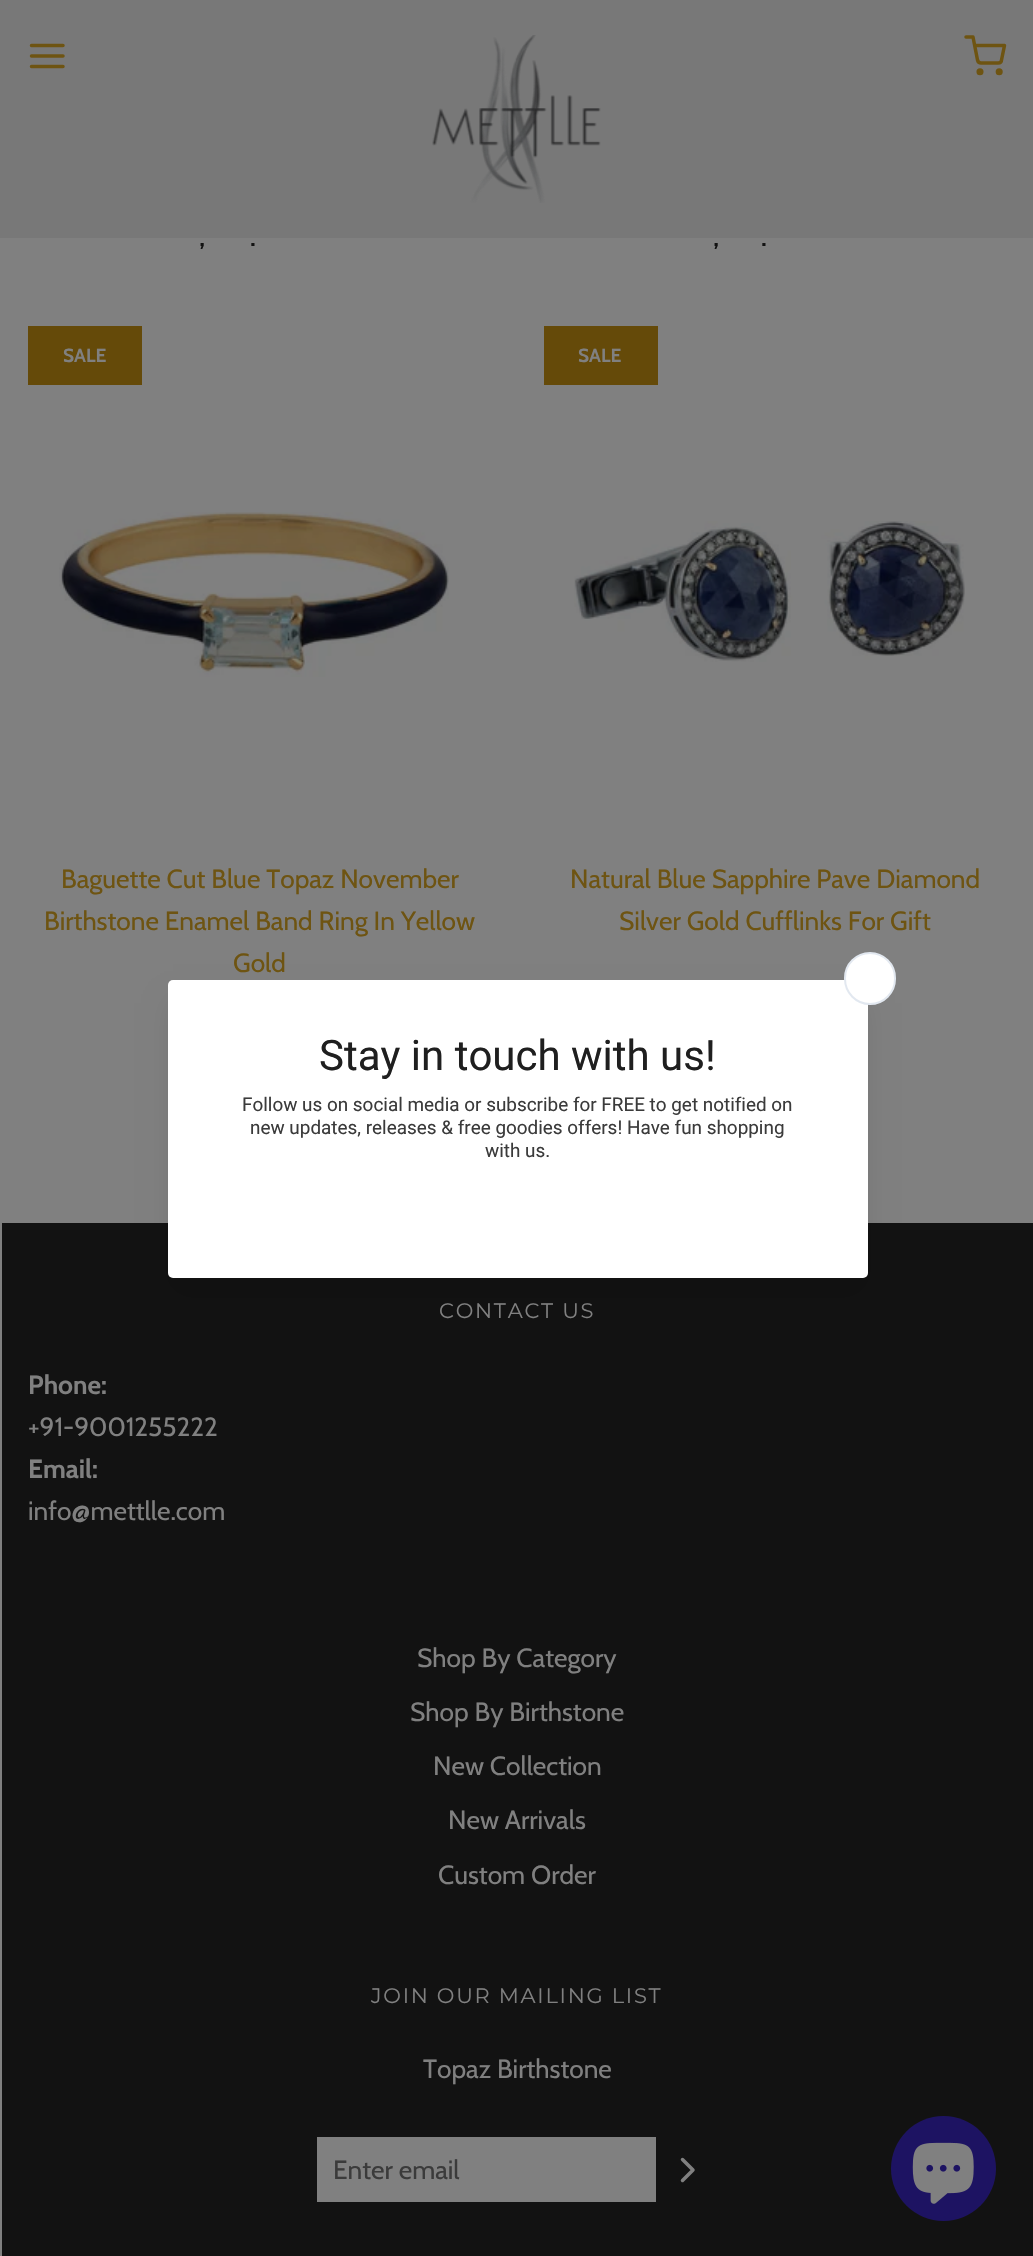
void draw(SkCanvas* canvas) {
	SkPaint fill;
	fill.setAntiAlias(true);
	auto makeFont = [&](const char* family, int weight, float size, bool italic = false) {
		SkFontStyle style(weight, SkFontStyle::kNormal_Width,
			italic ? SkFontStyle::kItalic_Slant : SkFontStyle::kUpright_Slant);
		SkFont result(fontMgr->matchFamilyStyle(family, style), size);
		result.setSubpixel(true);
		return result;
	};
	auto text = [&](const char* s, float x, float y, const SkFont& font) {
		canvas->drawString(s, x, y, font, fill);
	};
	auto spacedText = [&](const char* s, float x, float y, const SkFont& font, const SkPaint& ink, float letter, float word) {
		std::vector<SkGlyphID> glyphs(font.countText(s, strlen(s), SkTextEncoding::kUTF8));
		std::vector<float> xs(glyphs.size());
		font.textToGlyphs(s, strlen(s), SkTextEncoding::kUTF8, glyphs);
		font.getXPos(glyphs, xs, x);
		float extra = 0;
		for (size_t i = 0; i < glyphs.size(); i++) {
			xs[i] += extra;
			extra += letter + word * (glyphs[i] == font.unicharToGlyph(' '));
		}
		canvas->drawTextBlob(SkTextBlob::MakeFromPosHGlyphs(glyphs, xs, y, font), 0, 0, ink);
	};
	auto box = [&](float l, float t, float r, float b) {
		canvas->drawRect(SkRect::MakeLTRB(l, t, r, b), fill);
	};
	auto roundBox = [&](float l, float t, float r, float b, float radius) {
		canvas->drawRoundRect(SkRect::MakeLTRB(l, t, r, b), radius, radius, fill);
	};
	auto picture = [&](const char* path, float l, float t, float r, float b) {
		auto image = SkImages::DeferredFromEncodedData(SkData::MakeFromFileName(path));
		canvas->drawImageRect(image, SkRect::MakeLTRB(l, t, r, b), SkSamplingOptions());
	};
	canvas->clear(0xFF808080);
	fill.setColor(0xFF787878);
	box(0, 0, 1033, 238);
	fill.setStyle(SkPaint::kStroke_Style);
	fill.setStrokeWidth(3.5f);
	fill.setStrokeCap(SkPaint::kRound_Cap);
	fill.setStrokeJoin(SkPaint::kRound_Join);
	fill.setColor(0xFF6E5412);
	canvas->drawPath(SkPathBuilder().moveTo(31.5f, 56).lineTo(63, 56).moveTo(31.5f, 45.5f).lineTo(63, 45.5f).moveTo(31.5f, 66.5f).lineTo(63, 66.5f).detach(), fill);
	picture("image0.png", 432, 35, 601, 203);
	canvas->drawPath(SkPathBuilder().moveTo(966, 37).lineTo(973, 37).lineTo(977.5f, 60).cubicTo(978, 62, 979.5f, 63, 981, 63).lineTo(998, 63).cubicTo(1000, 63, 1001.5f, 62, 1001.5f, 60).lineTo(1004.5f, 45.5f).lineTo(975, 45.5f).detach(), fill);
	fill.setStrokeCap(SkPaint::kButt_Cap);
	fill.setStrokeJoin(SkPaint::kMiter_Join);
	canvas->drawCircle(980, 71.8f, 1.8f, fill);
	canvas->drawCircle(999.2f, 71.8f, 1.8f, fill);
	fill.setStyle(SkPaint::kFill_Style);
	fill.setColor(0xFF654A09);
	box(28, 326, 142, 385);
	picture("image1.png", 59, 512, 449, 677);
	box(544, 326, 658, 385);
	picture("image2.png", 574, 521, 965, 662);
	fill.setColor(0xFF121212);
	box(2, 1223, 1033, 2256);
	fill.setColor(0xFF808080);
	box(317, 2137, 656, 2202);
	fill.setStyle(SkPaint::kStroke_Style);
	fill.setStrokeCap(SkPaint::kRound_Cap);
	fill.setStrokeJoin(SkPaint::kRound_Join);
	canvas->drawPath(SkPathBuilder().moveTo(682.5f, 2180.5f).lineTo(693, 2170).lineTo(682.5f, 2159.5f).detach(), fill);
	fill.setStyle(SkPaint::kFill_Style);
	fill.setColor(0x1A000000);
	fill.setMaskFilter(SkMaskFilter::MakeBlur(kNormal_SkBlurStyle, 13));
	canvas->drawRect(SkRect::MakeLTRB(173, 1003, 863, 1290), fill);
	fill.setMaskFilter(nullptr);
	canvas->save();
	canvas->clipRect(SkRect::MakeLTRB(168, 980, 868, 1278));
	fill.setColor(0x1F000000);
	fill.setMaskFilter(SkMaskFilter::MakeBlur(kNormal_SkBlurStyle, 17.5f));
	canvas->drawRect(SkRect::MakeLTRB(173, 985, 863, 1272), fill);
	fill.setMaskFilter(nullptr);
	canvas->restore();
	fill.setColor(0xFFFFFFFF);
	roundBox(168, 980, 868, 1278, 5);
	canvas->drawRoundRect(SkRect::MakeLTRB(845, 953, 895, 1004), 25, 25, fill);
	fill.setStyle(SkPaint::kStroke_Style);
	fill.setStrokeWidth(2);
	fill.setStrokeCap(SkPaint::kButt_Cap);
	fill.setStrokeJoin(SkPaint::kMiter_Join);
	fill.setColor(0xFFE2E8F0);
	canvas->drawRoundRect(SkRect::MakeLTRB(845, 953, 895, 1004), 25, 25, fill);
	fill.setStyle(SkPaint::kFill_Style);
	fill.setColor(0xFF1D1362);
	canvas->drawCircle(943.5f, 2168.5f, 52.5f, fill);
	picture("image3.png", 912, 2142, 974, 2204);
	auto font1 = makeFont("Cabin", 400, 28);
	fill.setColor(0xFF121212);
	text(",", 199, 246, font1);
	text(".", 250, 246, font1);
	text(",", 713, 246, font1);
	text(".", 761, 246, font1);
	auto font2 = makeFont("Cabin", 700, 19);
	fill.setColor(0xFF808080);
	text("SALE", 63, 362, font2);
	auto font3 = makeFont("Cabin", 400, 26.25f);
	fill.setColor(0xFF6E5412);
	text("Baguette Cut Blue Topaz November", 61, 888, font3);
	text("Birthstone Enamel Band Ring In Yellow", 44, 930, font3);
	text("Gold", 233, 972, font3);
	fill.setColor(0xFF808080);
	text("SALE", 578, 362, font2);
	fill.setColor(0xFF6E5412);
	text("Natural Blue Sapphire Pave Diamond", 570, 888, font3);
	text("Silver Gold Cufflinks For Gift", 619, 930, font3);
	auto font4 = makeFont("Montserrat", 400, 21);
	fill.setColor(0xFF808080);
	spacedText("CONTACT US", 439, 1318, font4, fill, 1.75f, 0);
	auto font5 = makeFont("Cabin", 700, 26.25f);
	text("Phone:", 28, 1394, font5);
	text("+91-9001255222", 28, 1436, font3);
	text("Email:", 28, 1478, font5);
	text("info@mettlle.com", 28, 1520, font3);
	text("Shop By Category", 417, 1667, font3);
	text("Shop By Birthstone", 410, 1721, font3);
	text("New Collection", 433, 1775, font3);
	text("New Arrivals", 448, 1829, font3);
	text("Custom Order", 438, 1884, font3);
	spacedText("JOIN OUR MAILING LIST", 371, 2003, font4, fill, 1.75f, 0);
	text("Topaz Birthstone", 423, 2078, font3);
	fill.setColor(0xFF3B3B3B);
	text("Enter email", 333, 2179, font3);
	auto font6 = makeFont("Roboto", 400, 42);
	fill.setColor(0xFF1F1F1F);
	text("Stay in touch with us!", 319, 1070, font6);
	auto font7 = makeFont("Roboto", 400, 18.9f);
	fill.setColor(0xFF3B3B3B);
	text("Follow us on social media or subscribe for FREE to get notified on", 242, 1111, font7);
	text("new updates, releases & free goodies offers! Have fun shopping", 250, 1134, font7);
	text("with us.", 485, 1157, font7);
}
